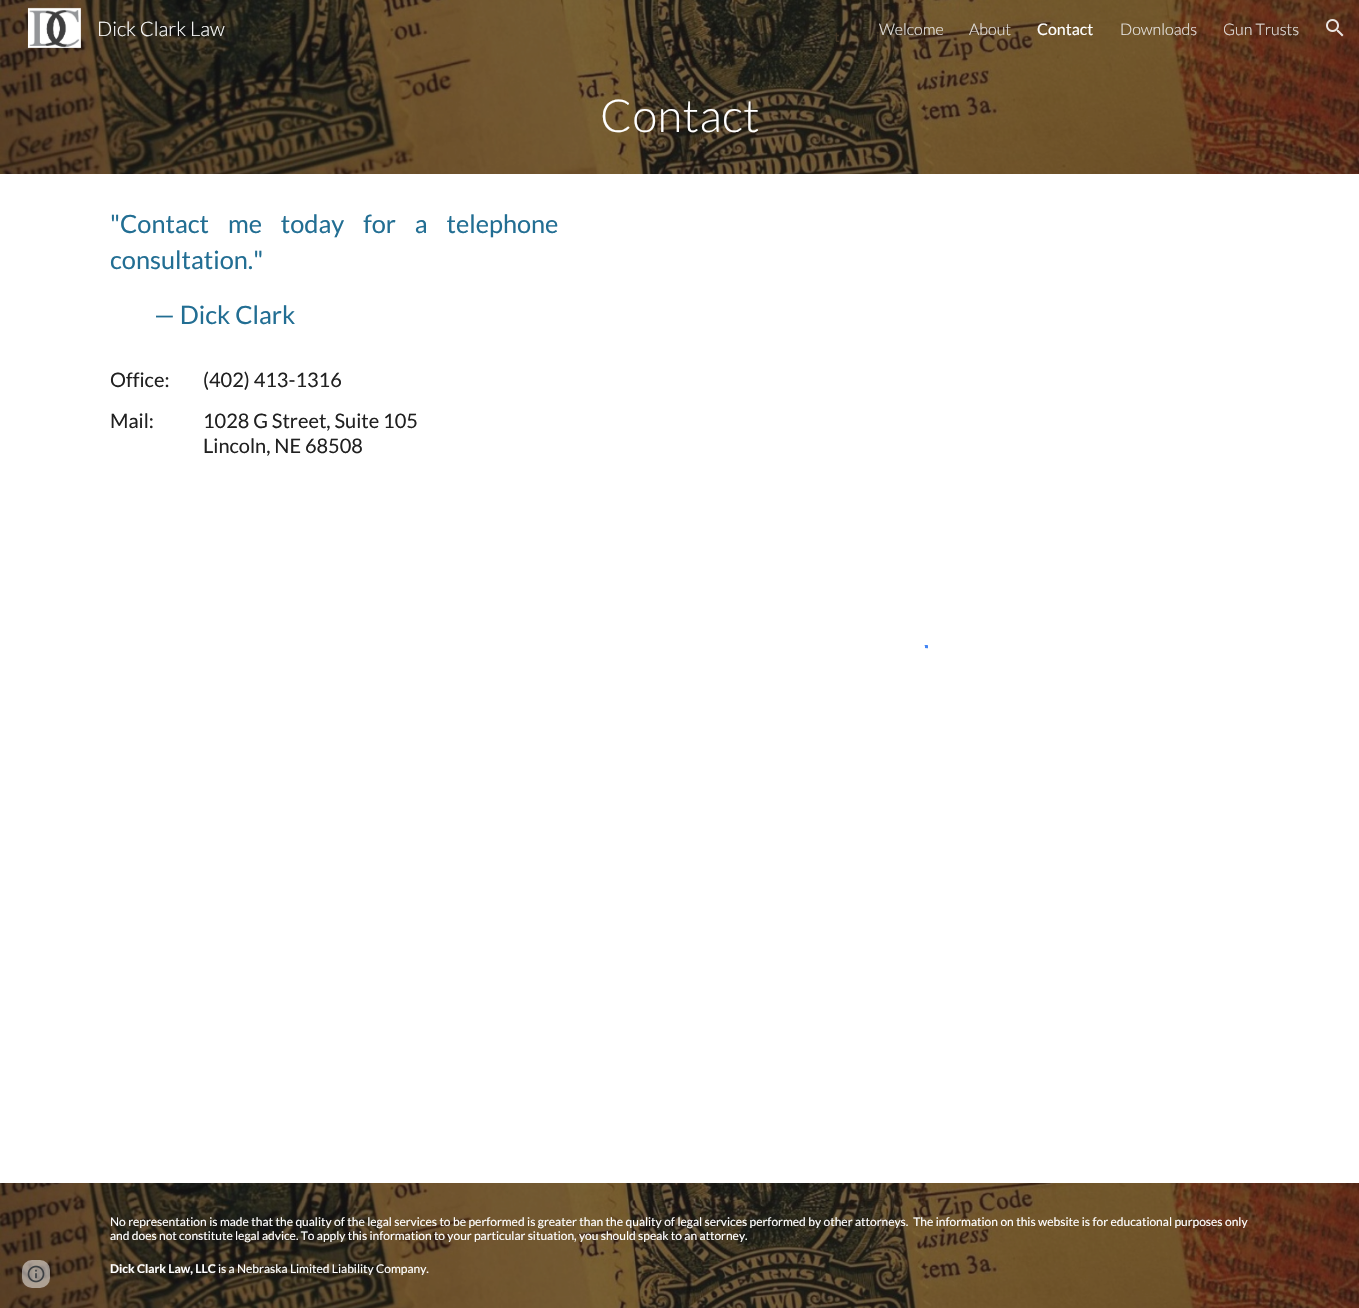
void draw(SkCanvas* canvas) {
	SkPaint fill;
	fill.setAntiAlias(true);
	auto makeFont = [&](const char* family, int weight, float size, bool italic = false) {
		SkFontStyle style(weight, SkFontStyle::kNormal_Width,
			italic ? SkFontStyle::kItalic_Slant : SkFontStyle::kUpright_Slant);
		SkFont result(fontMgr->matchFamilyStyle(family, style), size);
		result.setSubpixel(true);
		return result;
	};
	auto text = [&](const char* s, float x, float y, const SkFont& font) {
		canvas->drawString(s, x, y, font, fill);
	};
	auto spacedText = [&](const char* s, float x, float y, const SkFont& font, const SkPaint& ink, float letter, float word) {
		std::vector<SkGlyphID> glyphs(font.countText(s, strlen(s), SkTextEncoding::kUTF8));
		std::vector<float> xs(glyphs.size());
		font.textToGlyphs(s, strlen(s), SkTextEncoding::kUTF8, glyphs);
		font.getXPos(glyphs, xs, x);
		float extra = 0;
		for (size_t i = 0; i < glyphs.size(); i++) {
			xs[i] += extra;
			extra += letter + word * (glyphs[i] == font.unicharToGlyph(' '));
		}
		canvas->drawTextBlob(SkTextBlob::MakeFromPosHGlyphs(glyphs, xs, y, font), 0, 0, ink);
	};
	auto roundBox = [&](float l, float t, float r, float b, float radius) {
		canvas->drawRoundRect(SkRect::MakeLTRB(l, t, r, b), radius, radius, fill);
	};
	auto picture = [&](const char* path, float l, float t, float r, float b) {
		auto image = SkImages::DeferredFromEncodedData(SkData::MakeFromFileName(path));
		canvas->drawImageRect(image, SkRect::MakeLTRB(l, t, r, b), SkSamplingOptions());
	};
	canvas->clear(0xFFFFFFFF);
	picture("image2.png", 0, 0, 1359, 174);
	picture("image0.png", 27, 7, 81, 48);
	picture("image1.png", 1326, 19, 1344, 37);
	canvas->save();
	canvas->clipRect(SkRect::MakeLTRB(912, 645, 926, 673));
	fill.setStyle(SkPaint::kStroke_Style);
	fill.setStrokeWidth(3);
	fill.setColor(0xFF4486F4);
	canvas->drawPath(SkPathBuilder().moveTo(925, 646.5f).cubicTo(941.5f, 645, 943.5f, 670, 927, 671.5f).detach(), fill);
	canvas->restore();
	canvas->save();
	canvas->clipRect(SkRect::MakeLTRB(925, 645, 928, 673));
	canvas->drawPath(SkPathBuilder().moveTo(917, 668).cubicTo(914, 665, 913, 660.5f, 913.5f, 656.5f).cubicTo(916.5f, 642, 938.5f, 644, 938.5f, 659).cubicTo(938.5f, 662.5f, 937, 665.5f, 935, 668).detach(), fill);
	canvas->restore();
	canvas->save();
	canvas->clipRect(SkRect::MakeLTRB(926, 645, 940, 673));
	canvas->drawPath(SkPathBuilder().moveTo(925, 671.5f).cubicTo(908.5f, 670, 911, 645, 927, 646.5f).detach(), fill);
	canvas->restore();
	canvas->save();
	canvas->clipRect(SkRect::MakeLTRB(912, 645, 926, 673));
	canvas->drawPath(SkPathBuilder().moveTo(925, 646.5f).cubicTo(941.5f, 645, 943.5f, 670, 927, 671.5f).detach(), fill);
	canvas->restore();
	canvas->save();
	canvas->clipRect(SkRect::MakeLTRB(926, 645, 940, 673));
	canvas->drawPath(SkPathBuilder().moveTo(925, 671.5f).cubicTo(908.5f, 670, 911, 645, 927, 646.5f).detach(), fill);
	canvas->restore();
	canvas->save();
	canvas->clipRect(SkRect::MakeLTRB(912, 645, 926, 673));
	canvas->drawPath(SkPathBuilder().moveTo(925, 646.5f).cubicTo(941.5f, 645, 943.5f, 670, 927, 671.5f).detach(), fill);
	canvas->restore();
	canvas->save();
	canvas->clipRect(SkRect::MakeLTRB(926, 645, 940, 673));
	canvas->drawPath(SkPathBuilder().moveTo(925, 671.5f).cubicTo(908.5f, 670, 911, 645, 927, 646.5f).detach(), fill);
	canvas->restore();
	canvas->save();
	canvas->clipRect(SkRect::MakeLTRB(912, 645, 926, 673));
	canvas->drawPath(SkPathBuilder().moveTo(925, 646.5f).cubicTo(941.5f, 645, 943.5f, 670, 927, 671.5f).detach(), fill);
	canvas->restore();
	canvas->save();
	canvas->clipRect(SkRect::MakeLTRB(926, 645, 940, 673));
	canvas->drawPath(SkPathBuilder().moveTo(925, 671.5f).cubicTo(908.5f, 670, 911, 645, 927, 646.5f).detach(), fill);
	canvas->restore();
	picture("image4.png", 0, 1183, 1359, 1308);
	fill.setStyle(SkPaint::kFill_Style);
	fill.setColor(0x80FFFFFF);
	roundBox(22, 1260, 50, 1288, 10);
	picture("image3.png", 27, 1265, 45, 1283);
	auto font1 = makeFont("Lato", 300, 20);
	fill.setColor(0xFFFFFFFF);
	text("Dick Clark Law", 97, 36, font1);
	auto font2 = makeFont("Lato", 300, 16);
	fill.setColor(0xFFE8E6E3);
	text("Welcome", 879, 35, font2);
	text("About", 969, 35, font2);
	auto font3 = makeFont("Lato", 400, 16);
	fill.setColor(0xFFFFFFFF);
	text("Contact", 1037, 35, font3);
	fill.setColor(0xFFE8E6E3);
	text("Downloads", 1120, 35, font2);
	text("Gun Trusts", 1223, 35, font2);
	auto font4 = makeFont("Lato", 300, 45.5f);
	fill.setColor(0xFFFFFFFF);
	spacedText("Contact", 600, 132, font4, fill, 0.5f, 0);
	auto font5 = makeFont("Lato", 400, 25.3f);
	fill.setColor(0xFF226E93);
	spacedText("\"Contact me today for a telephone", 110, 233, font5, fill, 0, 14);
	text("consultation.\"", 110, 269, font5);
	text("— Dick Clark", 154, 324, font5);
	auto font6 = makeFont("Lato", 400, 20);
	fill.setColor(0xFF212121);
	text("Office:", 110, 387, font6);
	text("(402) 413-1316", 203, 387, font6);
	text("Mail:", 110, 428, font6);
	text("1028 G Street, Suite 105", 203, 428, font6);
	text("Lincoln, NE 68508", 203, 453, font6);
	auto font7 = makeFont("Lato", 400, 12);
	fill.setColor(0xFFFFFFFF);
	spacedText("No representation is made that the quality of the legal services to be performed is greater than the quality of legal services performed by other attorneys.  The information on this website is for educational purposes only", 110, 1226, font7, fill, 0, 0.15f);
	text("and does not constitute legal advice. To apply this information to your particular situation, you should speak to an attorney.", 110, 1240, font7);
	auto font8 = makeFont("Lato", 700, 12);
	text("Dick Clark Law, LLC", 110, 1273, font8);
	text("is a Nebraska Limited Liability Company.", 218, 1273, font7);
	auto font9 = makeFont("Google Sans", 500, 14);
	fill.setColor(0xFF413626);
	text("t", 834, 42, font9);
	text("i", 876, 42, font9);
}
